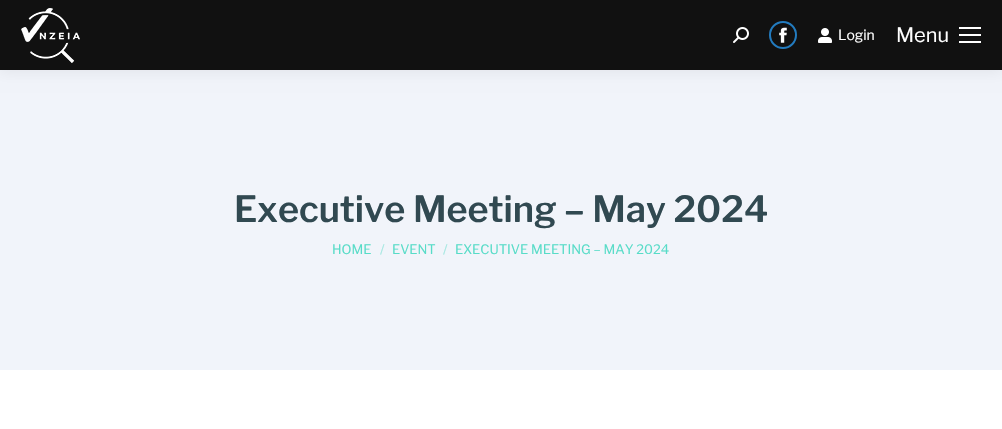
void draw(SkCanvas* canvas) {
	SkPaint fill;
	fill.setAntiAlias(true);
	auto makeFont = [&](const char* family, int weight, float size, bool italic = false) {
		SkFontStyle style(weight, SkFontStyle::kNormal_Width,
			italic ? SkFontStyle::kItalic_Slant : SkFontStyle::kUpright_Slant);
		SkFont result(fontMgr->matchFamilyStyle(family, style), size);
		result.setSubpixel(true);
		return result;
	};
	auto text = [&](const char* s, float x, float y, const SkFont& font) {
		canvas->drawString(s, x, y, font, fill);
	};
	auto box = [&](float l, float t, float r, float b) {
		canvas->drawRect(SkRect::MakeLTRB(l, t, r, b), fill);
	};
	auto picture = [&](const char* path, float l, float t, float r, float b) {
		auto image = SkImages::DeferredFromEncodedData(SkData::MakeFromFileName(path));
		canvas->drawImageRect(image, SkRect::MakeLTRB(l, t, r, b), SkSamplingOptions());
	};
	canvas->clear(0xFFFFFFFF);
	fill.setColor(0xFFF1F4FA);
	box(0, 70, 1002, 370);
	fill.setColor(0x12000000);
	fill.setMaskFilter(SkMaskFilter::MakeBlur(kNormal_SkBlurStyle, 7.5f));
	canvas->drawRect(SkRect::MakeLTRB(-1, -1, 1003, 71), fill);
	fill.setMaskFilter(nullptr);
	fill.setColor(0xFF111111);
	box(0, 0, 1002, 70);
	picture("image0.png", 21, 8, 80, 63);
	picture("image1.png", 733, 27, 749, 43);
	fill.setStyle(SkPaint::kStroke_Style);
	fill.setStrokeWidth(2);
	fill.setColor(0xFF227BBF);
	canvas->drawCircle(783, 35, 13, fill);
	picture("image2.png", 779, 27, 787, 43);
	picture("image3.png", 818, 28, 832, 43);
	fill.setStyle(SkPaint::kFill_Style);
	fill.setColor(0xFFFFFFFF);
	box(959, 27, 981, 29);
	box(959, 34, 981, 36);
	box(959, 41, 981, 43);
	auto font1 = makeFont("Libre Franklin", 400, 14);
	text("Login", 838, 40, font1);
	auto font2 = makeFont("Libre Franklin", 400, 20);
	text("Menu", 896, 42, font2);
	auto font3 = makeFont("Libre Franklin", 600, 36);
	fill.setColor(0xFF314951);
	text("Executive Meeting – May 2024", 234, 222, font3);
	auto font4 = makeFont("Libre Franklin", 400, 13);
	fill.setColor(0xFF58DCC8);
	text("HOME", 332, 254, font4);
	fill.setColor(0xFFA5E8E1);
	text("/", 380, 254, font4);
	fill.setColor(0xFF58DCC8);
	text("EVENT", 392, 254, font4);
	fill.setColor(0xFFA5E8E1);
	text("/", 443, 254, font4);
	fill.setColor(0xFF58DCC8);
	text("EXECUTIVE MEETING – MAY 2024", 455, 254, font4);
}
